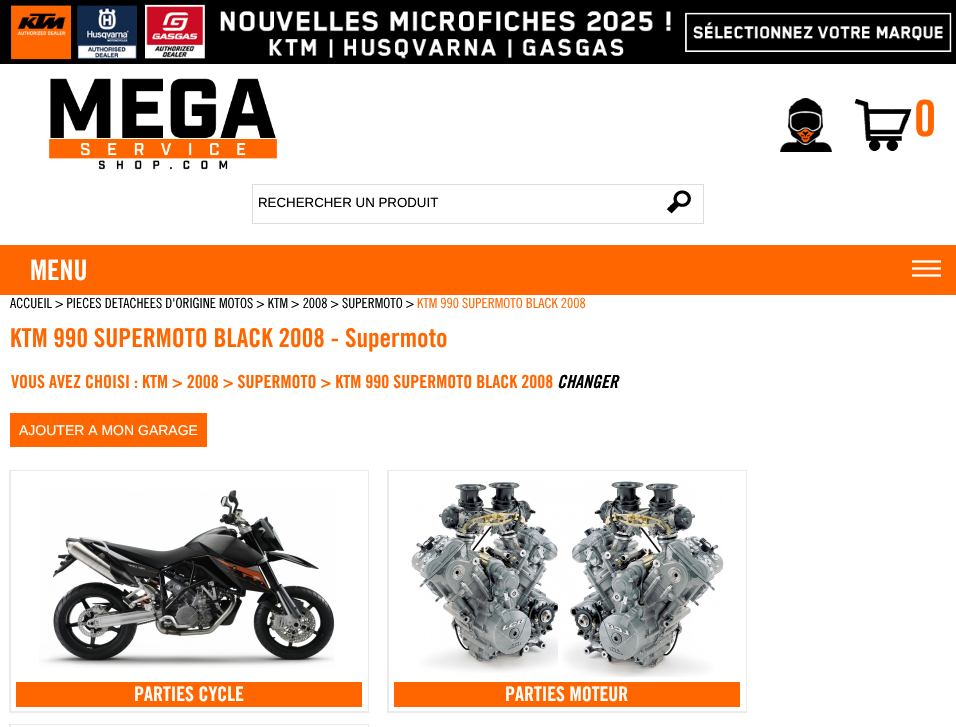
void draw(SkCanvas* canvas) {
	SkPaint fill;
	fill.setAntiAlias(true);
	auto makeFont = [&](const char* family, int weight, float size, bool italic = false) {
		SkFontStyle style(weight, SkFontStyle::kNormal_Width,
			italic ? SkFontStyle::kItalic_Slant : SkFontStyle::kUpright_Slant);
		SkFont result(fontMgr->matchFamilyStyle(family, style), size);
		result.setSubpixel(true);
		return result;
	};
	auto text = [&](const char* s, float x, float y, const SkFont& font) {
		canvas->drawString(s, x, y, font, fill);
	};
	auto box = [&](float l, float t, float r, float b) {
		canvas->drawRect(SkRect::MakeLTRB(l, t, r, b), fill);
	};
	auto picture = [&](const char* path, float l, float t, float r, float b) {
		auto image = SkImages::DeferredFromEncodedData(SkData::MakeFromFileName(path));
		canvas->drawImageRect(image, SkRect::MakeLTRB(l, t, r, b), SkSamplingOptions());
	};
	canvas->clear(0xFFFFFFFF);
	picture("image0.png", 0, 0, 956, 64);
	picture("image1.png", 49, 78, 277, 170);
	picture("image2.png", 780, 98, 832, 152);
	picture("image3.png", 854, 99, 912, 151);
	fill.setStyle(SkPaint::kStroke_Style);
	fill.setStrokeWidth(1);
	fill.setColor(0xFFDDDDDD);
	canvas->drawRect(SkRect::MakeLTRB(252.5f, 184.5f, 703.5f, 223.5f), fill);
	picture("image4.png", 666, 190, 691, 214);
	fill.setStyle(SkPaint::kFill_Style);
	fill.setColor(0xFFFF6600);
	box(0, 245, 956, 295);
	picture("image5.png", 912, 260, 941, 277);
	box(10, 413, 207, 447);
	picture("image6.png", 9, 470, 369, 713);
	picture("image7.png", 39, 490, 335, 668);
	box(16, 682, 362, 707);
	picture("image6.png", 387, 470, 747, 713);
	picture("image8.png", 411, 481, 724, 677);
	box(394, 682, 740, 707);
	picture("image9.png", 9, 724, 369, 727);
	auto font1 = makeFont("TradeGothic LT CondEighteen", 700, 50);
	text("0", 914, 136, font1);
	auto font2 = makeFont("Liberation Sans", 400, 13.3f);
	fill.setColor(0xFF000000);
	text("RECHERCHER UN PRODUIT", 258, 207, font2);
	auto font3 = makeFont("TradeGothic LT CondEighteen", 700, 28);
	fill.setColor(0xFFFFFFFF);
	text("MENU", 30, 280, font3);
	auto font4 = makeFont("TradeGothic LT CondEighteen", 500, 14);
	fill.setColor(0xFF000000);
	text("ACCUEIL > PIECES DETACHEES D'ORIGINE MOTOS > KTM > 2008 > SUPERMOTO >", 10, 308, font4);
	fill.setColor(0xFFFF6600);
	text("KTM 990 SUPERMOTO BLACK 2008", 417, 308, font4);
	auto font5 = makeFont("TradeGothic LT CondEighteen", 700, 26);
	text("KTM 990 SUPERMOTO BLACK 2008 - Supermoto", 10, 347, font5);
	auto font6 = makeFont("TradeGothic LT CondEighteen", 700, 18);
	text("VOUS AVEZ CHOISI : KTM > 2008 > SUPERMOTO > KTM 990 SUPERMOTO BLACK 2008", 11, 388, font6);
	auto font7 = makeFont("TradeGothic LT CondEighteen", 700, 18, true);
	fill.setColor(0xFF000000);
	text("CHANGER", 557, 388, font7);
	auto font8 = makeFont("Liberation Sans", 400, 14);
	fill.setColor(0xFFFFFFFF);
	text("AJOUTER A MON GARAGE", 19, 435, font8);
	auto font9 = makeFont("TradeGothic LT CondEighteen", 700, 20);
	text("PARTIES CYCLE", 134, 701, font9);
	text("PARTIES MOTEUR", 505, 701, font9);
}
